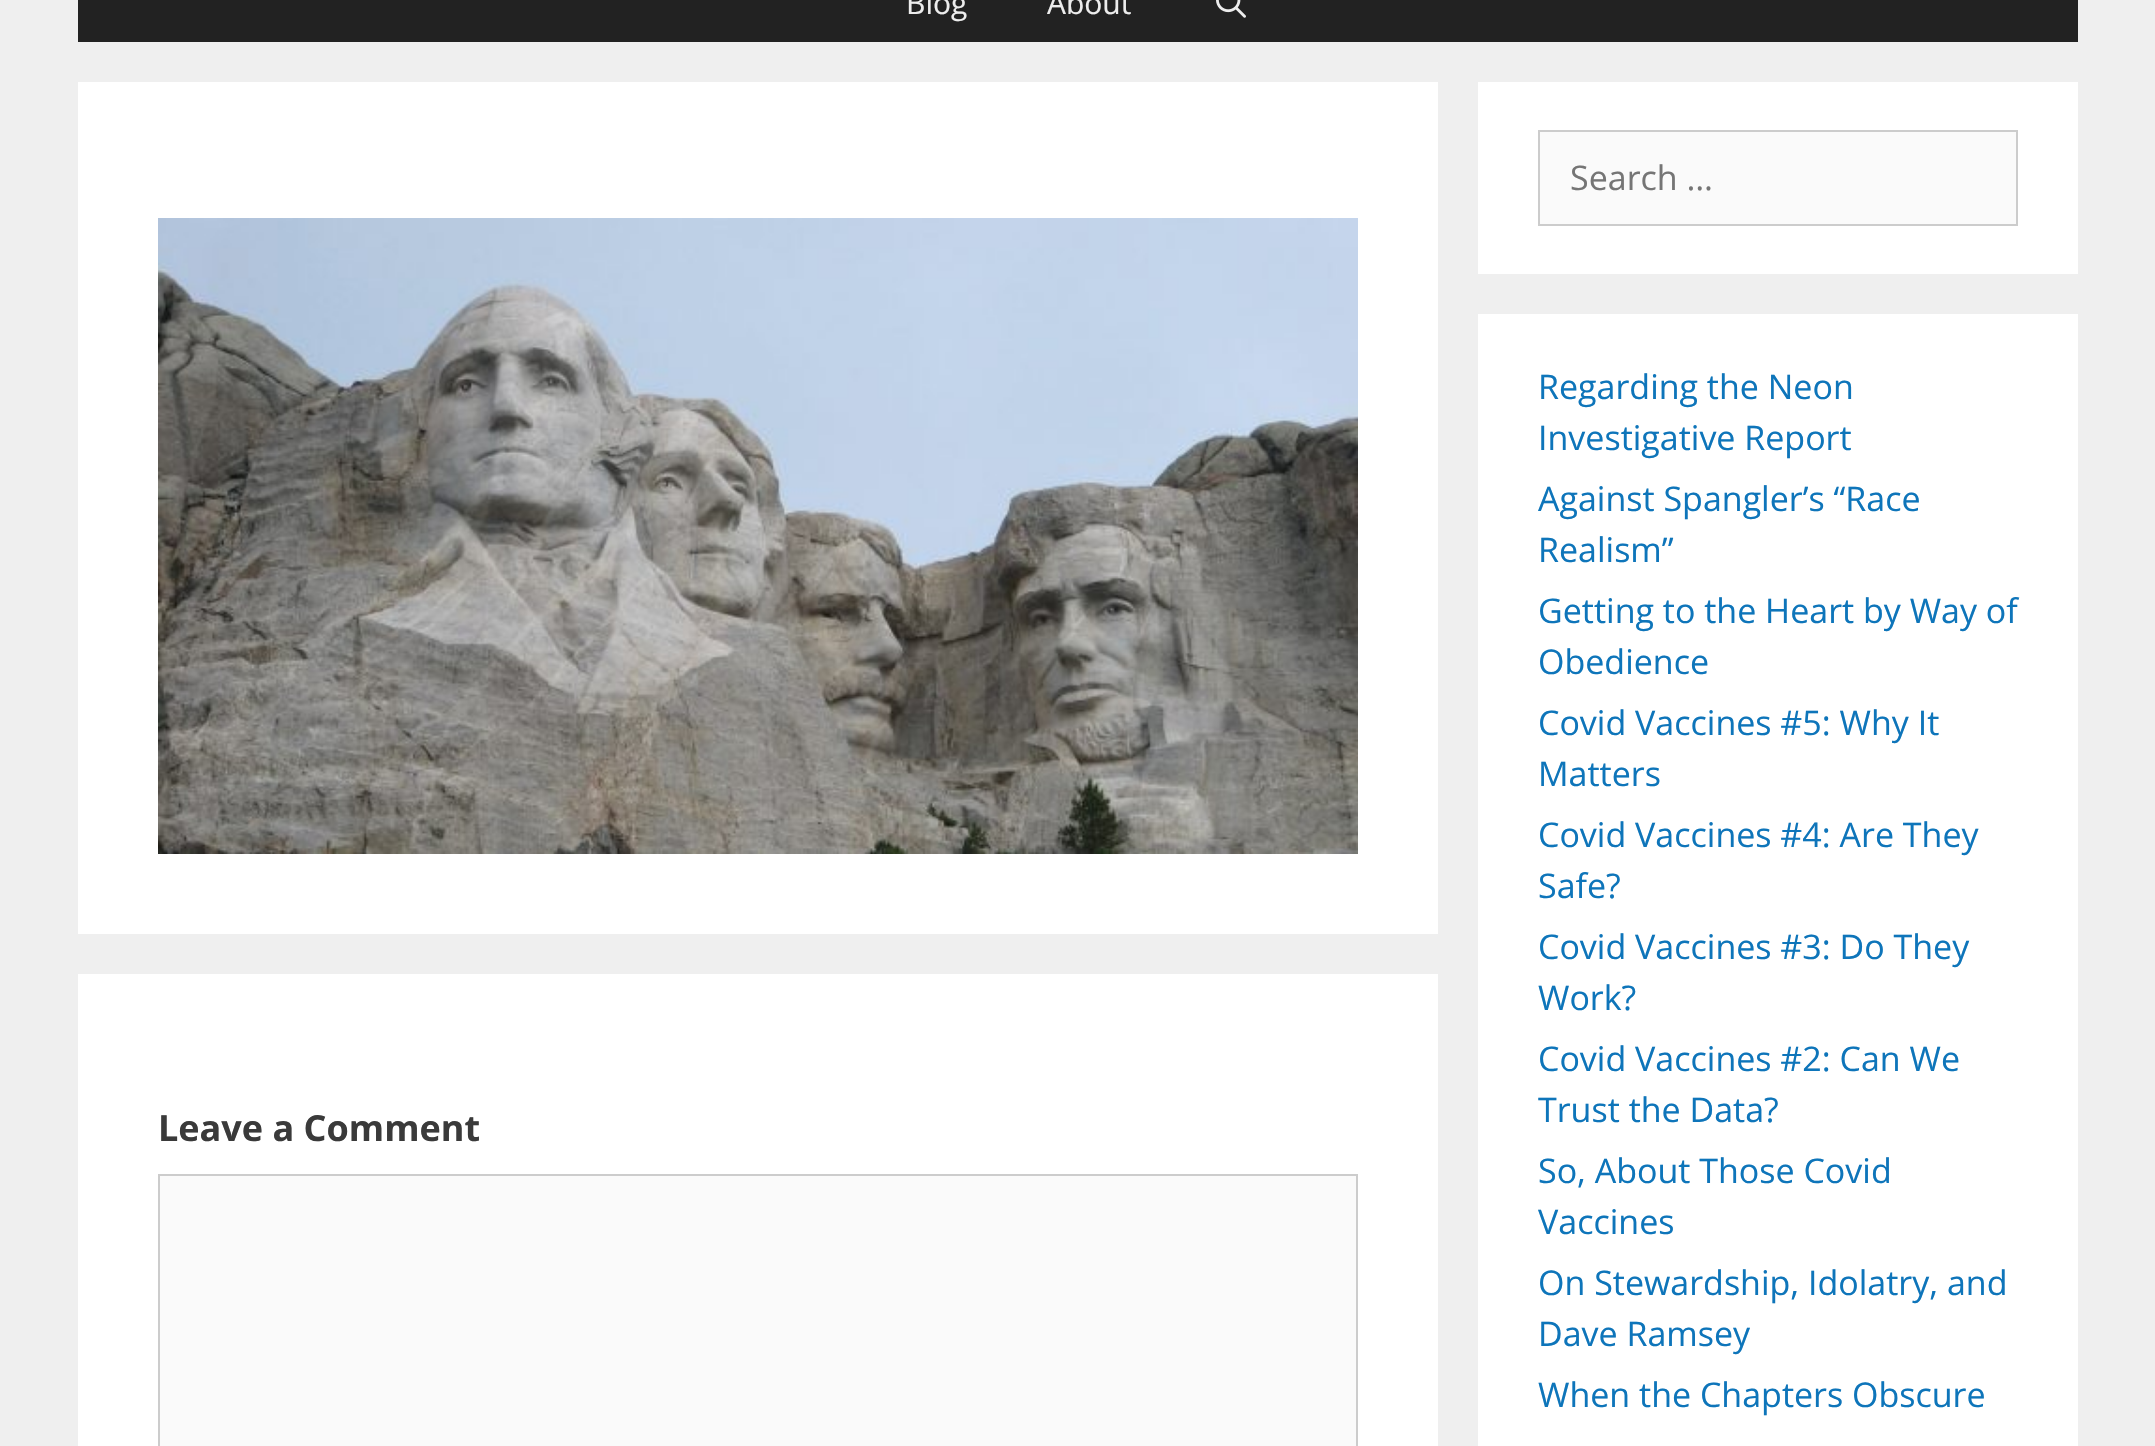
void draw(SkCanvas* canvas) {
	SkPaint fill;
	fill.setAntiAlias(true);
	auto makeFont = [&](const char* family, int weight, float size, bool italic = false) {
		SkFontStyle style(weight, SkFontStyle::kNormal_Width,
			italic ? SkFontStyle::kItalic_Slant : SkFontStyle::kUpright_Slant);
		SkFont result(fontMgr->matchFamilyStyle(family, style), size);
		result.setSubpixel(true);
		return result;
	};
	auto text = [&](const char* s, float x, float y, const SkFont& font) {
		canvas->drawString(s, x, y, font, fill);
	};
	auto box = [&](float l, float t, float r, float b) {
		canvas->drawRect(SkRect::MakeLTRB(l, t, r, b), fill);
	};
	auto picture = [&](const char* path, float l, float t, float r, float b) {
		auto image = SkImages::DeferredFromEncodedData(SkData::MakeFromFileName(path));
		canvas->drawImageRect(image, SkRect::MakeLTRB(l, t, r, b), SkSamplingOptions());
	};
	canvas->clear(0xFFEFEFEF);
	fill.setColor(0xFF222222);
	box(78, 0, 2078, 42);
	picture("image0.png", 1216, 0, 1246, 18);
	fill.setColor(0xFFFFFFFF);
	box(78, 82, 1438, 934);
	picture("image1.png", 158, 218, 1358, 854);
	box(78, 974, 1438, 1446);
	fill.setColor(0xFFFAFAFA);
	canvas->drawRect(SkRect::MakeLTRB(159, 1175, 1357, 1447), fill);
	fill.setStyle(SkPaint::kStroke_Style);
	fill.setStrokeWidth(2);
	fill.setColor(0xFFCCCCCC);
	canvas->drawRect(SkRect::MakeLTRB(159, 1175, 1357, 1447), fill);
	fill.setStyle(SkPaint::kFill_Style);
	fill.setColor(0xFFFFFFFF);
	box(1478, 82, 2078, 274);
	fill.setColor(0xFFFAFAFA);
	canvas->drawRect(SkRect::MakeLTRB(1539, 131, 2017, 225), fill);
	fill.setStyle(SkPaint::kStroke_Style);
	fill.setColor(0xFFCCCCCC);
	canvas->drawRect(SkRect::MakeLTRB(1539, 131, 2017, 225), fill);
	fill.setStyle(SkPaint::kFill_Style);
	fill.setColor(0xFFFFFFFF);
	box(1478, 314, 2078, 1446);
	auto font1 = makeFont("Open Sans", 400, 30);
	fill.setColor(0xFFEDEDED);
	text("Blog", 906, 14, font1);
	text("About", 1047, 14, font1);
	auto font2 = makeFont("Open Sans", 700, 36);
	fill.setColor(0xFF3A3A3A);
	text("Leave a Comment", 158, 1141, font2);
	auto font3 = makeFont("Open Sans", 400, 34);
	fill.setColor(0xFF757575);
	text("Search …", 1570, 190, font3);
	fill.setColor(0xFF0E75BA);
	text("Regarding the Neon", 1538, 399, font3);
	text("Investigative Report", 1538, 450, font3);
	text("Against Spangler’s “Race", 1538, 511, font3);
	text("Realism”", 1538, 562, font3);
	text("Getting to the Heart by Way of", 1538, 623, font3);
	text("Obedience", 1538, 674, font3);
	text("Covid Vaccines #5: Why It", 1538, 735, font3);
	text("Matters", 1538, 786, font3);
	text("Covid Vaccines #4: Are They", 1538, 847, font3);
	text("Safe?", 1538, 898, font3);
	text("Covid Vaccines #3: Do They", 1538, 959, font3);
	text("Work?", 1538, 1010, font3);
	text("Covid Vaccines #2: Can We", 1538, 1071, font3);
	text("Trust the Data?", 1538, 1122, font3);
	text("So, About Those Covid", 1538, 1183, font3);
	text("Vaccines", 1538, 1234, font3);
	text("On Stewardship, Idolatry, and", 1538, 1295, font3);
	text("Dave Ramsey", 1538, 1346, font3);
	text("When the Chapters Obscure", 1538, 1407, font3);
}
